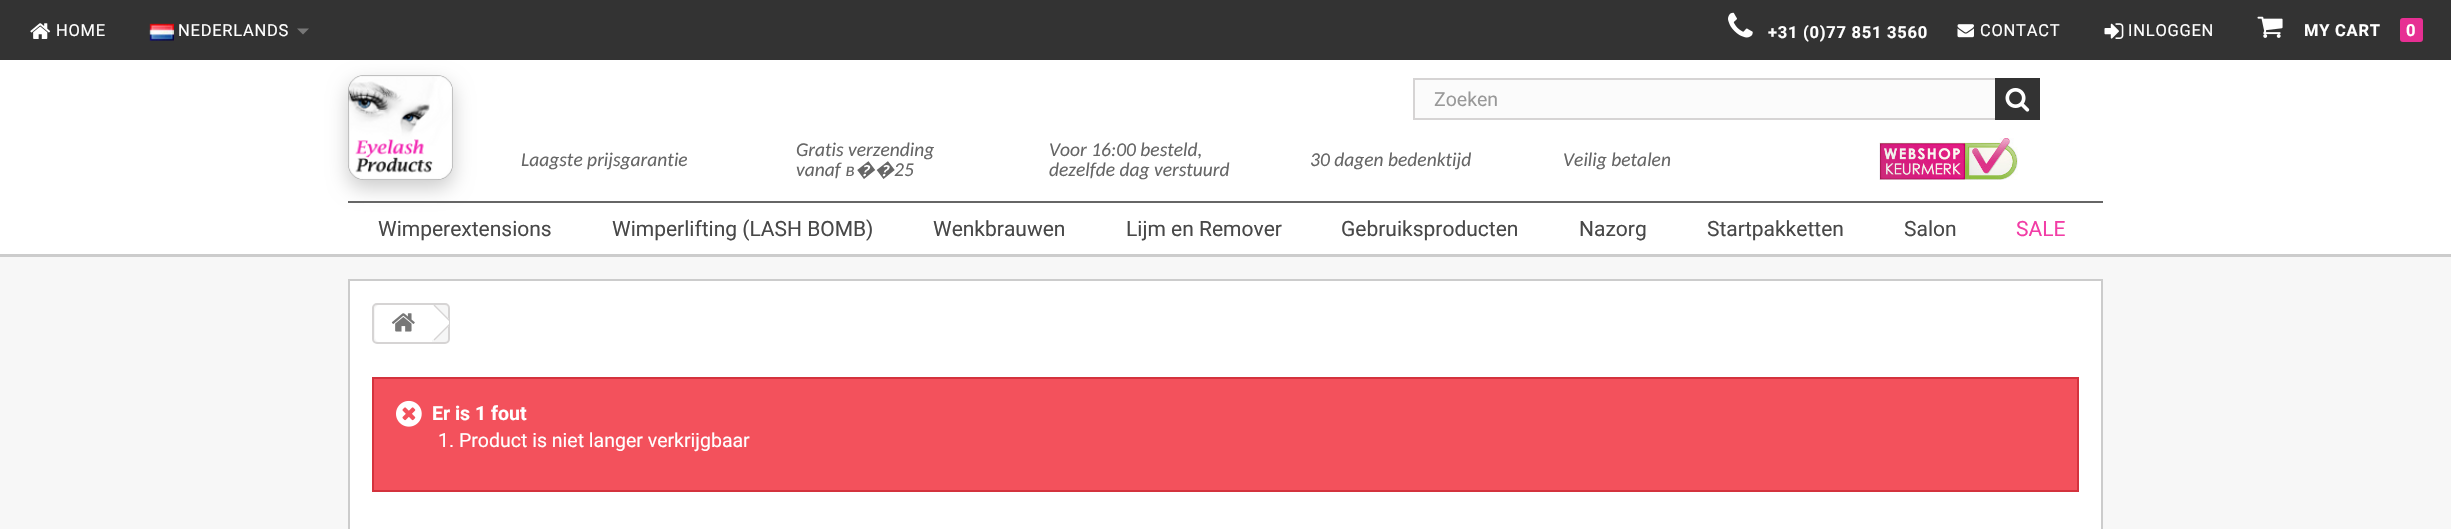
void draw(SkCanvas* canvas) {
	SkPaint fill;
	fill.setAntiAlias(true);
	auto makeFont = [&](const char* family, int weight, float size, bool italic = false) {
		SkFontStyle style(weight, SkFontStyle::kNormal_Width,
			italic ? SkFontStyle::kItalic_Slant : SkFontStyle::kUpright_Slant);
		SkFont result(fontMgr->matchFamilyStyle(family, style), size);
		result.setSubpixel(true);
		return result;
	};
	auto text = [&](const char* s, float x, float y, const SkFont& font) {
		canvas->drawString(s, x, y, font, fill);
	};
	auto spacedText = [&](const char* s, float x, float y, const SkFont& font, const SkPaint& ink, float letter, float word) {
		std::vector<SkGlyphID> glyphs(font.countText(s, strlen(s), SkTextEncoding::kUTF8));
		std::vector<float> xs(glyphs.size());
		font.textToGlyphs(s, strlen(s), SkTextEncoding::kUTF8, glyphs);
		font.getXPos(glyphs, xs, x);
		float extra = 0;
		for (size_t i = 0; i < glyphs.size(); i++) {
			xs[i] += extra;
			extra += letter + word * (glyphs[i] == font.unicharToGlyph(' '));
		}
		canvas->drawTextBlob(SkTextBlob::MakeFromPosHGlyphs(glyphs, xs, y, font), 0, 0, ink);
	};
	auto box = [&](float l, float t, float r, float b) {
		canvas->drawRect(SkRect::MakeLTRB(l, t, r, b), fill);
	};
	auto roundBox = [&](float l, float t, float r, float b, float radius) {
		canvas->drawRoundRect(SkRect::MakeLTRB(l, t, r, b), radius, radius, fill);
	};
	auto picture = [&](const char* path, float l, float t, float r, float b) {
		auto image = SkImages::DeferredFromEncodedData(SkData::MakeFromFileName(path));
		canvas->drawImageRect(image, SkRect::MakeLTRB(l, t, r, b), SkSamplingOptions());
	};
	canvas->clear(0xFFF7F7F7);
	fill.setColor(0xFFFFFFFF);
	box(0, 60, 2451, 254);
	fill.setColor(0x33000000);
	fill.setMaskFilter(SkMaskFilter::MakeBlur(kNormal_SkBlurStyle, 10));
	canvas->drawRoundRect(SkRect::MakeLTRB(348, 83, 453, 188), 15, 15, fill);
	fill.setMaskFilter(nullptr);
	fill.setColor(0xFF333333);
	box(0, 0, 2451, 60);
	picture("image0.png", 30, 23, 51, 39);
	picture("image1.png", 149, 23, 174, 41);
	fill.setColor(0xFF777777);
	canvas->drawPath(SkPathBuilder().moveTo(297, 28.5f).lineTo(309, 28.5f).lineTo(303, 34.5f).close().detach(), fill);
	picture("image2.png", 1728, 12, 1753, 38);
	picture("image3.png", 1957, 24, 1974, 38);
	picture("image4.png", 2104, 23, 2124, 39);
	picture("image5.png", 2257, 16, 2283, 38);
	fill.setColor(0xFFE72F93);
	roundBox(2400, 18, 2423, 42, 3);
	fill.setColor(0xFFCCCCCC);
	box(0, 254, 2451, 257);
	picture("image6.png", 348, 75, 453, 180);
	fill.setColor(0xFFFBFBFB);
	box(1415, 80, 1995, 118);
	fill.setStyle(SkPaint::kStroke_Style);
	fill.setStrokeWidth(2);
	fill.setColor(0xFFD6D4D4);
	canvas->drawRect(SkRect::MakeLTRB(1414, 79, 2017, 119), fill);
	fill.setStyle(SkPaint::kFill_Style);
	fill.setColor(0xFF333333);
	box(1995, 78, 2040, 120);
	picture("image7.png", 2005, 88, 2030, 112);
	picture("image8.png", 1879, 138, 2018, 180);
	fill.setColor(0xFFFFFFFF);
	box(364, 203, 437, 204);
	fill.setColor(0xFF666666);
	box(348, 201, 2103, 203);
	fill.setColor(0xFFFFFFFF);
	canvas->drawRect(SkRect::MakeLTRB(349, 280, 2102, 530), fill);
	fill.setStyle(SkPaint::kStroke_Style);
	fill.setColor(0xFFCCCCCC);
	canvas->drawRect(SkRect::MakeLTRB(349, 280, 2102, 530), fill);
	fill.setStyle(SkPaint::kFill_Style);
	fill.setColor(0xFFF6F6F6);
	canvas->drawRoundRect(SkRect::MakeLTRB(373, 304, 449, 343), 4, 4, fill);
	fill.setStyle(SkPaint::kStroke_Style);
	fill.setColor(0xFFD6D4D4);
	canvas->drawRoundRect(SkRect::MakeLTRB(373, 304, 449, 343), 4, 4, fill);
	fill.setStyle(SkPaint::kFill_Style);
	fill.setColor(0xFFFFFFFF);
	canvas->drawPath(SkPathBuilder().moveTo(380, 305).lineTo(432, 305).lineTo(432, 342).lineTo(380, 342).cubicTo(377, 342, 375, 340, 375, 337).lineTo(375, 310).cubicTo(375, 307, 377, 305, 380, 305).close().detach(), fill);
	picture("image9.png", 391, 313, 415, 332);
	canvas->drawPath(SkPathBuilder().moveTo(435.5f, 305.5f).lineTo(435, 305).lineTo(432, 305).lineTo(431.5f, 305.5f).lineTo(416.5f, 320.5f).cubicTo(415.5f, 321.5f, 415.5f, 323.5f, 416.5f, 324.5f).lineTo(431.5f, 339.5f).cubicTo(432.5f, 340.5f, 434.5f, 340.5f, 435.5f, 339.5f).lineTo(449, 326).lineTo(449, 319).close().detach(), fill);
	fill.setColor(0xFFD6D4D4);
	canvas->drawPath(SkPathBuilder().moveTo(449, 321).lineTo(433.5f, 305.5f).lineTo(434, 305).lineTo(435, 305).lineTo(449, 319).close().moveTo(449, 324).lineTo(449, 326).lineTo(434.5f, 340.5f).lineTo(433.5f, 339.5f).close().detach(), fill);
	fill.setColor(0xFFF3515C);
	canvas->drawRect(SkRect::MakeLTRB(373, 378, 2078, 491), fill);
	fill.setStyle(SkPaint::kStroke_Style);
	fill.setColor(0xFFD4323D);
	canvas->drawRect(SkRect::MakeLTRB(373, 378, 2078, 491), fill);
	picture("image10.png", 396, 400, 422, 427);
	auto font1 = makeFont("Roboto", 400, 16.5f);
	fill.setStyle(SkPaint::kFill_Style);
	fill.setColor(0xFFFFFFFF);
	spacedText("HOME", 56, 36, font1, fill, 0.75f, 0);
	spacedText("NEDERLANDS", 178, 36, font1, fill, 0.75f, 0);
	auto font2 = makeFont("Roboto", 700, 16.5f);
	spacedText("+31 (0)77 851 3560", 1768, 38, font2, fill, 0.75f, 0);
	spacedText("CONTACT", 1980, 36, font1, fill, 0.75f, 0);
	spacedText("INLOGGEN", 2128, 36, font1, fill, 0.75f, 0);
	spacedText("MY CART", 2304, 36, font2, fill, 0.75f, 0);
	spacedText("0", 2406, 36, font2, fill, 0.75f, 0);
	auto font3 = makeFont("Roboto", 400, 19.5f);
	fill.setColor(0xFF999999);
	text("Zoeken", 1434, 106, font3);
	auto font4 = makeFont("Carlito", 400, 19.5f, true);
	fill.setColor(0xFF666666);
	text("Laagste prijsgarantie", 521, 166, font4);
	text("Gratis verzending", 796, 156, font4);
	text("vanaf в", 796, 176, font4);
	auto font5 = makeFont("Noto Sans", 400, 19.5f, true);
	text("��", 855, 176, font5);
	text("25", 894, 176, font4);
	text("Voor 16:00 besteld,", 1049, 156, font4);
	text("dezelfde dag verstuurd", 1049, 176, font4);
	text("30 dagen bedenktijd", 1310, 166, font4);
	text("Veilig betalen", 1563, 166, font4);
	auto font6 = makeFont("Roboto", 400, 21);
	fill.setColor(0xFF484848);
	text("Wimperextensions", 378, 236, font6);
	text("Wimperlifting (LASH BOMB)", 612, 236, font6);
	text("Wenkbrauwen", 933, 236, font6);
	text("Lijm en Remover", 1126, 236, font6);
	text("Gebruiksproducten", 1341, 236, font6);
	text("Nazorg", 1579, 236, font6);
	text("Startpakketten", 1707, 236, font6);
	text("Salon", 1904, 236, font6);
	fill.setColor(0xFFF23DA6);
	text("SALE", 2016, 236, font6);
	auto font7 = makeFont("Roboto", 700, 19.5f);
	fill.setColor(0xFFFFFFFF);
	text("Er is 1 fout", 432, 420, font7);
	text("1. Product is niet langer verkrijgbaar", 438, 447, font3);
}
